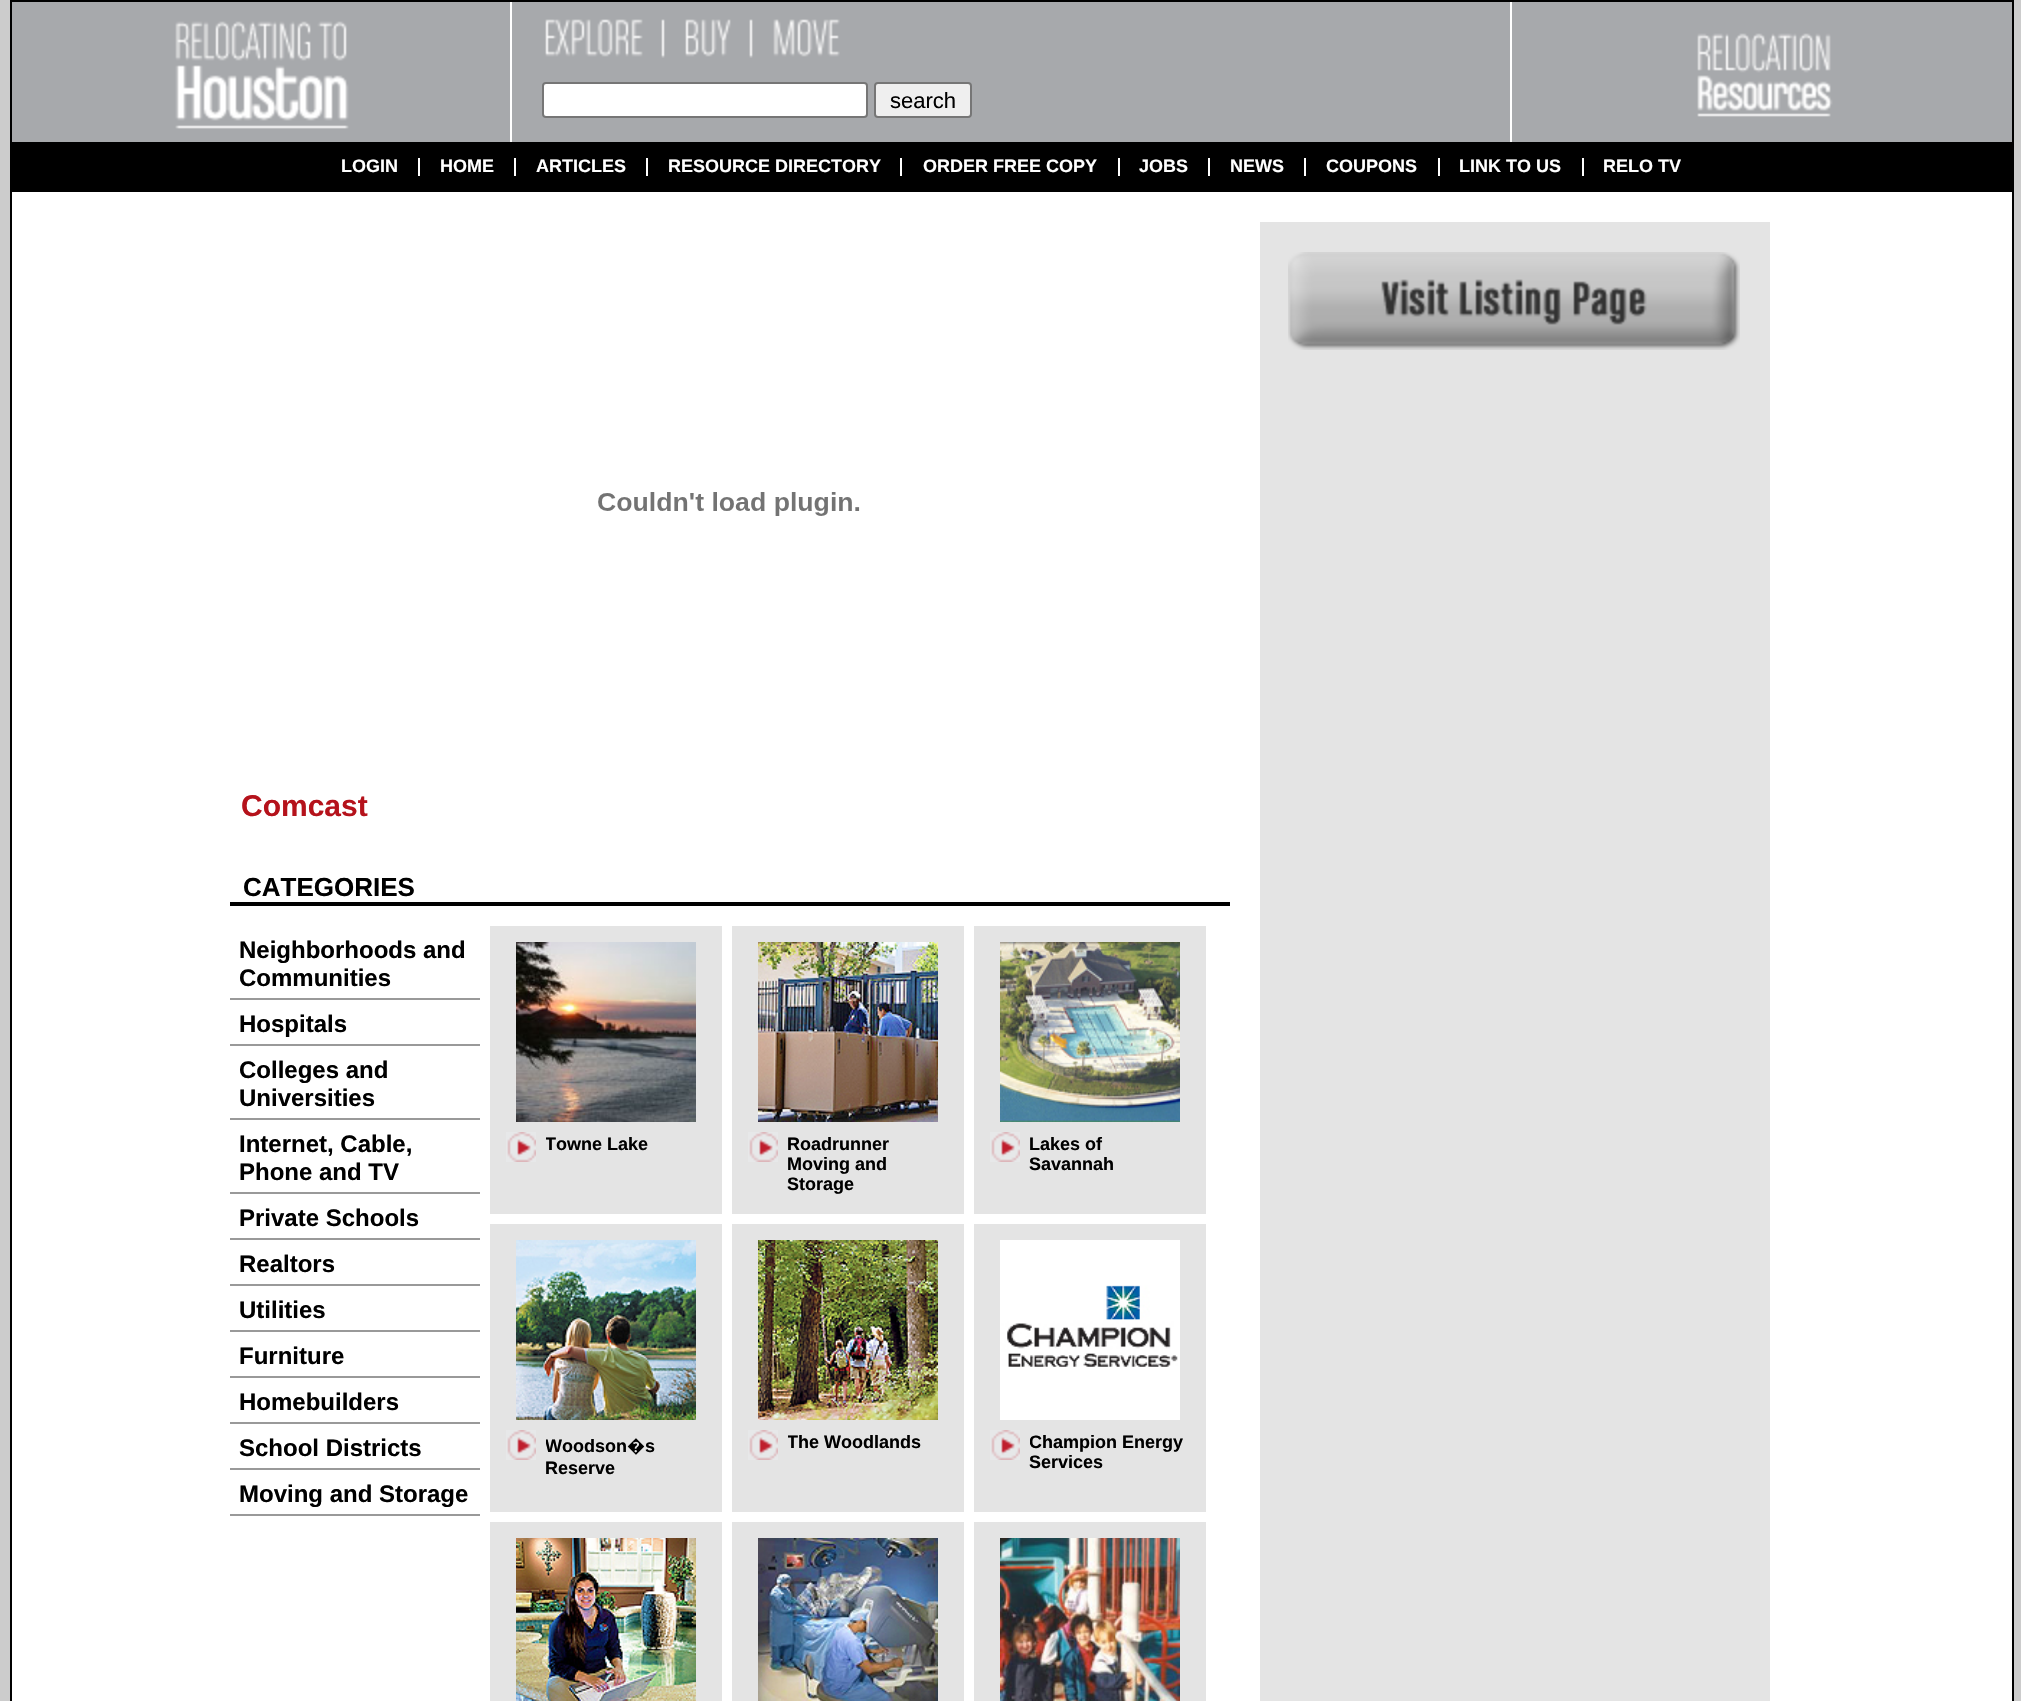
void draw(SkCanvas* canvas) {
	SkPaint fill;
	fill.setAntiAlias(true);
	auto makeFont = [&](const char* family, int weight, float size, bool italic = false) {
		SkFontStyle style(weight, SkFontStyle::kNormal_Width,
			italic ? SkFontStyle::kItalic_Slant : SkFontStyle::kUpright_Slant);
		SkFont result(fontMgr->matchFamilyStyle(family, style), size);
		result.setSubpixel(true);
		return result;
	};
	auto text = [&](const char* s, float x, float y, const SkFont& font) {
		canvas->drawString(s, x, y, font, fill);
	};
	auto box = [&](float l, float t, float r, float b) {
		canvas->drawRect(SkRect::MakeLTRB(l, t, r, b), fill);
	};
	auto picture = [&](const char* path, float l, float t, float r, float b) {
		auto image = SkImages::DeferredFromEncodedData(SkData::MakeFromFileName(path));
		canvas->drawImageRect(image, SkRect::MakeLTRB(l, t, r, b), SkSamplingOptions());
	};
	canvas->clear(0xFFCCCCCC);
	fill.setColor(0xFF000000);
	box(10, 0, 2014, 2);
	fill.setColor(0xFFA7A9AC);
	box(12, 2, 2012, 142);
	fill.setColor(0xFF000000);
	box(10, 2, 12, 142);
	picture("image0.png", 175, 21, 349, 129);
	fill.setColor(0xFFFFFFFF);
	box(510, 2, 512, 142);
	picture("image1.png", 545, 19, 840, 58);
	canvas->drawRoundRect(SkRect::MakeLTRB(543, 83, 867, 117), 3, 3, fill);
	fill.setStyle(SkPaint::kStroke_Style);
	fill.setStrokeWidth(2);
	fill.setColor(0xFF767676);
	canvas->drawRoundRect(SkRect::MakeLTRB(543, 83, 867, 117), 3, 3, fill);
	fill.setStyle(SkPaint::kFill_Style);
	fill.setColor(0xFFEFEFEF);
	canvas->drawRoundRect(SkRect::MakeLTRB(875, 83, 971, 117), 3, 3, fill);
	fill.setStyle(SkPaint::kStroke_Style);
	fill.setColor(0xFF767676);
	canvas->drawRoundRect(SkRect::MakeLTRB(875, 83, 971, 117), 3, 3, fill);
	fill.setStyle(SkPaint::kFill_Style);
	fill.setColor(0xFFFFFFFF);
	box(1510, 2, 1512, 142);
	picture("image2.png", 1697, 33, 1833, 117);
	fill.setColor(0xFF000000);
	box(2012, 2, 2014, 142);
	box(10, 142, 2014, 192);
	fill.setColor(0xFFFFFFFF);
	box(418, 158, 420, 176);
	box(514, 158, 516, 176);
	box(646, 158, 648, 176);
	box(900, 158, 902, 176);
	box(1118, 158, 1120, 176);
	box(1208, 158, 1210, 176);
	box(1304, 158, 1306, 176);
	box(1438, 158, 1440, 176);
	box(1582, 158, 1584, 176);
	box(12, 192, 2012, 1701);
	fill.setColor(0xFF000000);
	box(2012, 192, 2014, 1701);
	box(10, 192, 12, 1701);
	picture("image3.png", 598, 492, 860, 516);
	box(230, 902, 1230, 906);
	fill.setColor(0xFF999999);
	box(230, 998, 480, 1000);
	box(230, 1044, 480, 1046);
	box(230, 1118, 480, 1120);
	box(230, 1192, 480, 1194);
	box(230, 1238, 480, 1240);
	box(230, 1284, 480, 1286);
	box(230, 1330, 480, 1332);
	box(230, 1376, 480, 1378);
	box(230, 1422, 480, 1424);
	box(230, 1468, 480, 1470);
	box(230, 1514, 480, 1516);
	fill.setColor(0xFFE4E4E4);
	box(490, 926, 722, 1214);
	picture("image4.png", 516, 942, 696, 1122);
	picture("image5.png", 506, 1132, 536, 1162);
	box(732, 926, 964, 1214);
	picture("image6.png", 758, 942, 938, 1122);
	picture("image5.png", 748, 1132, 778, 1162);
	box(974, 926, 1206, 1214);
	picture("image7.png", 1000, 942, 1180, 1122);
	picture("image5.png", 990, 1132, 1020, 1162);
	box(490, 1224, 722, 1512);
	picture("image8.png", 516, 1240, 696, 1420);
	picture("image5.png", 506, 1430, 536, 1460);
	box(732, 1224, 964, 1512);
	picture("image9.png", 758, 1240, 938, 1420);
	picture("image5.png", 748, 1430, 778, 1460);
	box(974, 1224, 1206, 1512);
	picture("image10.png", 1000, 1240, 1180, 1420);
	picture("image5.png", 990, 1430, 1020, 1460);
	box(490, 1522, 722, 1701);
	picture("image11.png", 516, 1538, 696, 1701);
	box(732, 1522, 964, 1701);
	picture("image12.png", 758, 1538, 938, 1701);
	box(974, 1522, 1206, 1701);
	picture("image13.png", 1000, 1538, 1180, 1701);
	box(1260, 222, 1770, 1701);
	picture("image14.png", 1288, 252, 1740, 350);
	auto font1 = makeFont("Liberation Sans", 400, 22);
	fill.setColor(0xFF000000);
	text("search", 890, 108, font1);
	auto font2 = makeFont("Liberation Sans", 700, 18);
	fill.setColor(0xFFFFFFFF);
	text("LOGIN", 341, 172, font2);
	text("HOME", 440, 172, font2);
	text("ARTICLES", 536, 172, font2);
	text("RESOURCE DIRECTORY", 668, 172, font2);
	text("ORDER FREE COPY", 923, 172, font2);
	text("JOBS", 1139, 172, font2);
	text("NEWS", 1230, 172, font2);
	text("COUPONS", 1326, 172, font2);
	text("LINK TO US", 1459, 172, font2);
	text("RELO TV", 1603, 172, font2);
	auto font3 = makeFont("Liberation Sans", 700, 30);
	fill.setColor(0xFFB5121B);
	text("Comcast", 241, 816, font3);
	auto font4 = makeFont("Liberation Sans", 700, 26);
	fill.setColor(0xFF000000);
	text("CATEGORIES", 243, 896, font4);
	auto font5 = makeFont("Liberation Sans", 700, 24);
	text("Neighborhoods and", 239, 958, font5);
	text("Communities", 239, 986, font5);
	text("Hospitals", 239, 1032, font5);
	text("Colleges and", 239, 1078, font5);
	text("Universities", 239, 1106, font5);
	text("Internet, Cable,", 239, 1152, font5);
	text("Phone and TV", 239, 1180, font5);
	text("Private Schools", 239, 1226, font5);
	text("Realtors", 239, 1272, font5);
	text("Utilities", 239, 1318, font5);
	text("Furniture", 239, 1364, font5);
	text("Homebuilders", 239, 1410, font5);
	text("School Districts", 239, 1456, font5);
	text("Moving and Storage", 239, 1502, font5);
	canvas->save();
	canvas->clipRect(SkRect::MakeLTRB(546, 1134, 706, 1154));
	text("Towne Lake", 545, 1150, font2);
	canvas->restore();
	text("Roadrunner", 787, 1150, font2);
	text("Moving and", 787, 1170, font2);
	text("Storage", 787, 1190, font2);
	text("Lakes of", 1029, 1150, font2);
	text("Savannah", 1029, 1170, font2);
	canvas->save();
	canvas->clipRect(SkRect::MakeLTRB(546, 1432, 706, 1478));
	text("Woodson", 545, 1452, font2);
	canvas->restore();
	auto font6 = makeFont("Noto Sans", 700, 18);
	text("�", 627, 1452, font6);
	text("s", 645, 1452, font2);
	text("Reserve", 545, 1474, font2);
	canvas->save();
	canvas->clipRect(SkRect::MakeLTRB(788, 1432, 948, 1452));
	text("The Woodlands", 787, 1448, font2);
	canvas->restore();
	canvas->save();
	canvas->clipRect(SkRect::MakeLTRB(1030, 1432, 1190, 1472));
	text("Champion Energy", 1029, 1448, font2);
	canvas->restore();
	text("Services", 1029, 1468, font2);
}
